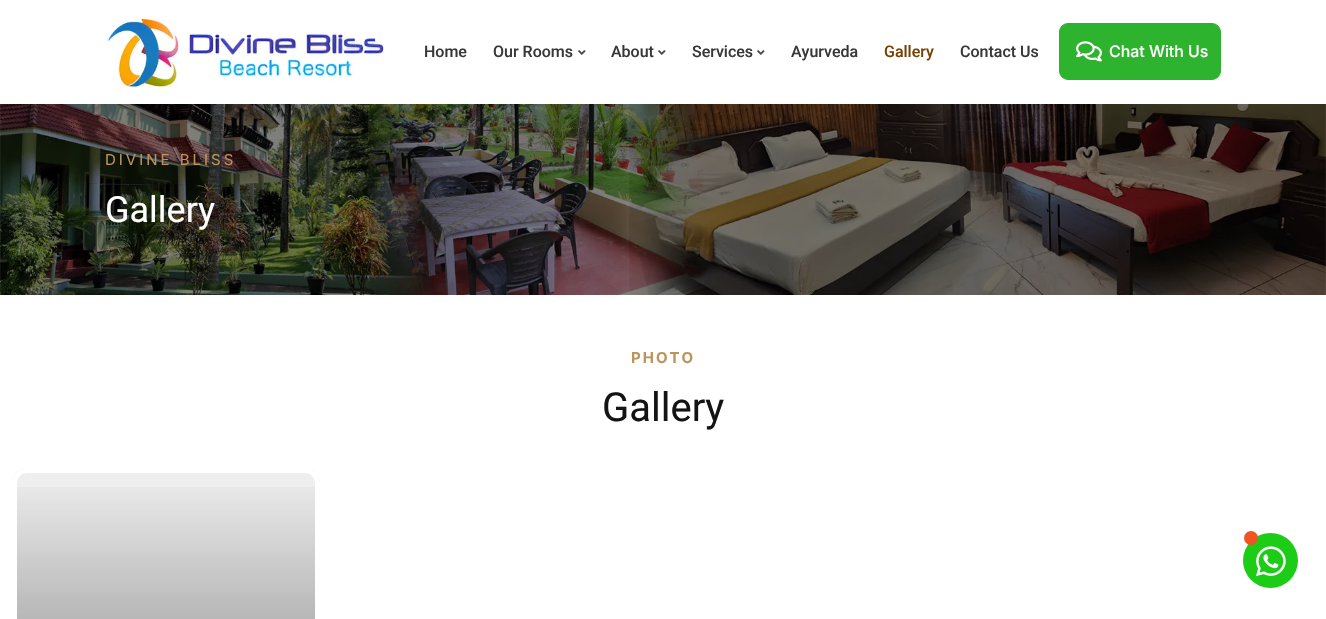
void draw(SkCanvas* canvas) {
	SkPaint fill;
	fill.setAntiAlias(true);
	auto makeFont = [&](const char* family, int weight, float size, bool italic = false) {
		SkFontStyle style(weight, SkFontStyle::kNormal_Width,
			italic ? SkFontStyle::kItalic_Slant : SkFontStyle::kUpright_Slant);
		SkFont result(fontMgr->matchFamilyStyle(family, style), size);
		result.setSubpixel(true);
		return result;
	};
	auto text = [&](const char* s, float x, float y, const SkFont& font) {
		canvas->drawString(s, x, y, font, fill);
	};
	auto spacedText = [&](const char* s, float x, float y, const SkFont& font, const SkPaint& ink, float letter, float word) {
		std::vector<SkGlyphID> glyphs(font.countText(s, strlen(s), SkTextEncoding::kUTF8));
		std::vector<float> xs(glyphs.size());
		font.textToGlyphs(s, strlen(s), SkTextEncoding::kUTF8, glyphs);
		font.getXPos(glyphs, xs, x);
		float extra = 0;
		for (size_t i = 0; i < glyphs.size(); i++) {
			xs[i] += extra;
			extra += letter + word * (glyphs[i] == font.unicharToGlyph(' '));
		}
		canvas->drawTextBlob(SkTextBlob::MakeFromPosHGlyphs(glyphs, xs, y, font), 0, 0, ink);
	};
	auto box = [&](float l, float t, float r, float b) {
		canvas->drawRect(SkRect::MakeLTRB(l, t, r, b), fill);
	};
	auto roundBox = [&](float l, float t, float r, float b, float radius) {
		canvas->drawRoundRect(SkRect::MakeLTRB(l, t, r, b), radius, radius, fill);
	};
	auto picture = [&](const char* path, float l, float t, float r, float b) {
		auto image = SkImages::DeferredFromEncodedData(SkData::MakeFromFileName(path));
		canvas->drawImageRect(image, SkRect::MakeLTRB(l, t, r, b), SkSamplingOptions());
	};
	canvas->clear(0xFFFFFFFF);
	picture("image0.png", 105, 16, 384, 89);
	picture("image1.png", 578, 50, 586, 55);
	picture("image1.png", 658, 50, 666, 55);
	picture("image1.png", 757, 50, 765, 55);
	fill.setColor(0xFF2EB32E);
	canvas->drawRoundRect(SkRect::MakeLTRB(1059.5f, 23.5f, 1220.5f, 79.5f), 8.5f, 8.5f, fill);
	fill.setStyle(SkPaint::kStroke_Style);
	fill.setStrokeWidth(1);
	canvas->drawRoundRect(SkRect::MakeLTRB(1059.5f, 23.5f, 1220.5f, 79.5f), 8.5f, 8.5f, fill);
	picture("image2.png", 1076, 41, 1102, 62);
	picture("image3.png", 0, 104, 1326, 295);
	fill.setStyle(SkPaint::kFill_Style);
	fill.setColor(0xFFEEEEEE);
	roundBox(12, 468, 320, 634, 15);
	{
		const SkColor colors[] = {0x54000000, 0x00000000};
		const float stops[] = {0, 1};
		const SkPoint ends[] = {{166, 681}, {166, 473}};
		fill.setShader(SkGradientShader::MakeLinear(ends, colors, stops, 2, SkTileMode::kClamp));
		fill.setAlpha(255);
	}
	box(17, 487, 315, 619);
	fill.setStyle(SkPaint::kStroke_Style);
	fill.setStrokeWidth(5);
	fill.setShader(nullptr);
	fill.setColor(0xFFFFFFFF);
	canvas->drawRoundRect(SkRect::MakeLTRB(14.5f, 470.5f, 317.5f, 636.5f), 12.5f, 12.5f, fill);
	fill.setStyle(SkPaint::kFill_Style);
	fill.setColor(0xFF1CCC17);
	canvas->drawCircle(1270.5f, 560.5f, 27.5f, fill);
	fill.setColor(0xFFF15325);
	canvas->drawCircle(1251, 538, 7, fill);
	picture("image4.png", 1256, 546, 1286, 577);
	auto font1 = makeFont("Roboto", 500, 16);
	fill.setColor(0xFF383838);
	text("Home", 424, 57, font1);
	text("Our Rooms", 493, 57, font1);
	text("About", 611, 57, font1);
	text("Services", 692, 57, font1);
	text("Ayurveda", 791, 57, font1);
	fill.setColor(0xFF764203);
	text("Gallery", 884, 57, font1);
	fill.setColor(0xFF383838);
	text("Contact Us", 960, 57, font1);
	auto font2 = makeFont("Inter", 500, 16);
	fill.setColor(0xFFFFFFFF);
	text("Chat With Us", 1109, 57, font2);
	auto font3 = makeFont("Inter", 400, 15);
	fill.setColor(0xFFBD945A);
	spacedText("DIVINE BLISS", 105, 165, font3, fill, 3, 0);
	auto font4 = makeFont("Roboto", 400, 36);
	fill.setColor(0xFFFFFFFF);
	text("Gallery", 105, 222, font4);
	auto font5 = makeFont("Inter", 700, 15);
	fill.setColor(0xFFBD945A);
	spacedText("PHOTO", 631, 363, font5, fill, 2, 0);
	auto font6 = makeFont("Roboto", 400, 40);
	fill.setColor(0xFF141414);
	text("Gallery", 602, 421, font6);
}
